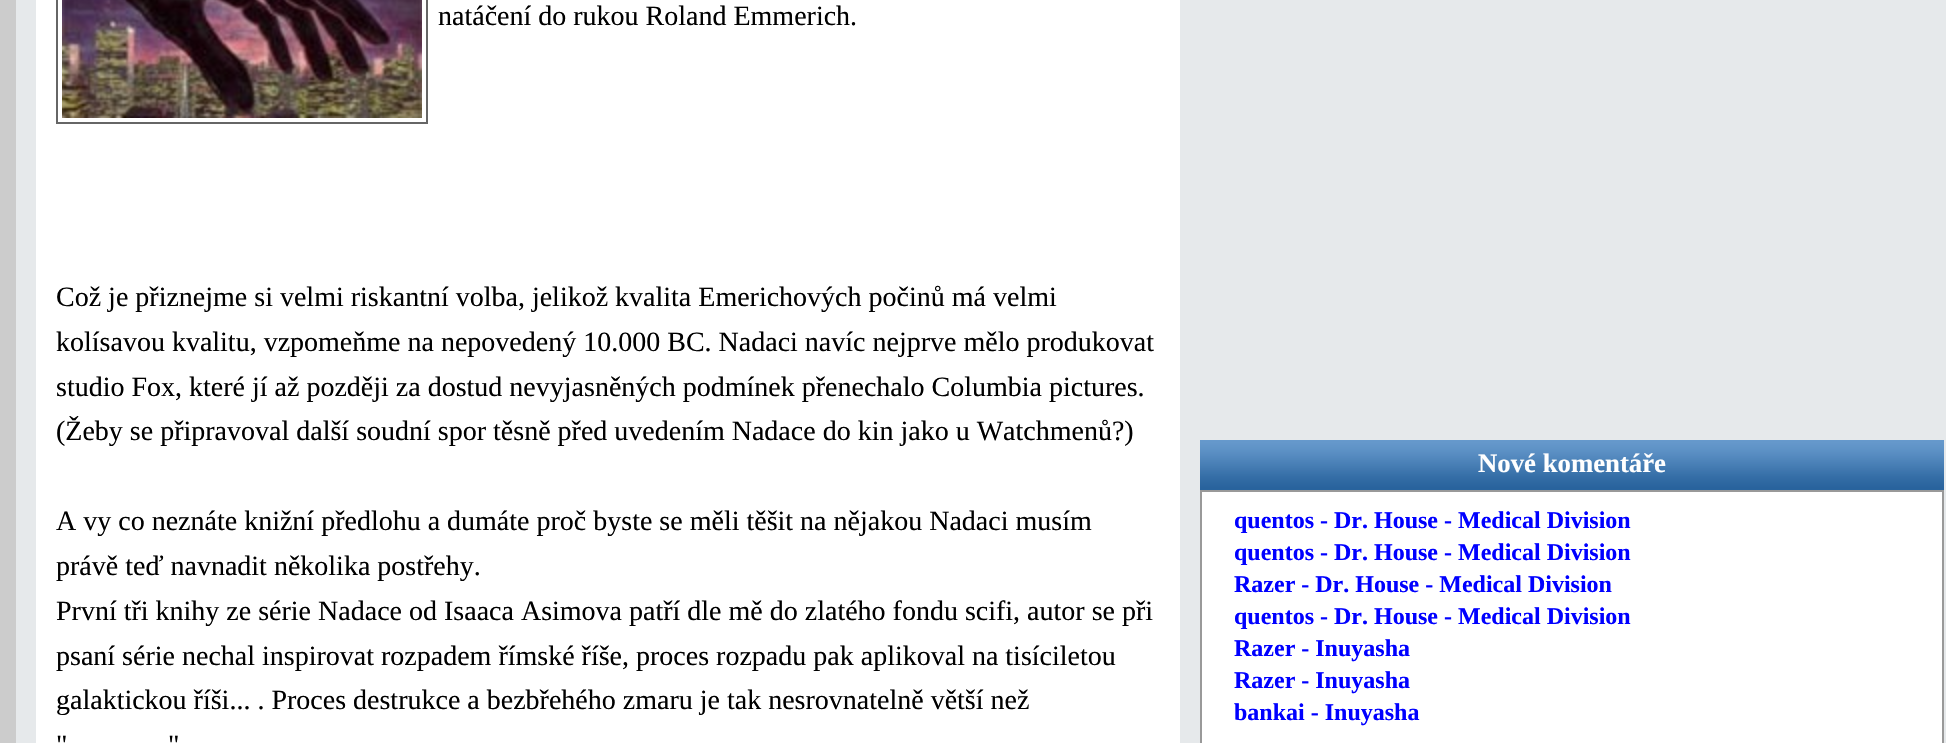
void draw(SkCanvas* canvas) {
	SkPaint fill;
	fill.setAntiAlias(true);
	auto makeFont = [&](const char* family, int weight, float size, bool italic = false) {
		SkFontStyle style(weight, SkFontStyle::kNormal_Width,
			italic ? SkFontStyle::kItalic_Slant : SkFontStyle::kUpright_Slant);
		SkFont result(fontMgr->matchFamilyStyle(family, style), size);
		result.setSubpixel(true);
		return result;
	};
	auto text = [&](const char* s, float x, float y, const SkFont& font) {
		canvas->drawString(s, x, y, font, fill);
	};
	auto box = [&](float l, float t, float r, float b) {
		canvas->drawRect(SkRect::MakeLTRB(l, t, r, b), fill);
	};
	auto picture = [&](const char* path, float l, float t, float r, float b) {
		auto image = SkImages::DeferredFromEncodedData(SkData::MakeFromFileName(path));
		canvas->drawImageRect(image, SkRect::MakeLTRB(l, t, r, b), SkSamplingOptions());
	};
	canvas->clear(0xFFCCCCCC);
	fill.setColor(0xFFE6E9EB);
	box(16, 0, 1946, 743);
	fill.setColor(0xFFFFFFFF);
	box(36, 0, 1180, 743);
	fill.setStyle(SkPaint::kStroke_Style);
	fill.setStrokeWidth(2);
	fill.setColor(0xFF666666);
	canvas->drawRect(SkRect::MakeLTRB(57, -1, 427, 123), fill);
	picture("image0.png", 62, 0, 422, 118);
	picture("image1.png", 1200, 440, 1944, 490);
	fill.setStyle(SkPaint::kFill_Style);
	fill.setColor(0xFFFFFFFF);
	canvas->drawRect(SkRect::MakeLTRB(1201, 491, 1943, 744), fill);
	fill.setStyle(SkPaint::kStroke_Style);
	fill.setColor(0xFF999999);
	canvas->drawRect(SkRect::MakeLTRB(1201, 491, 1943, 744), fill);
	auto font1 = makeFont("Liberation Serif", 400, 28);
	fill.setStyle(SkPaint::kFill_Style);
	fill.setColor(0xFF000000);
	text("natáčení do rukou Roland Emmerich.", 438, 25, font1);
	text("Což je přiznejme si velmi riskantní volba, jelikož kvalita Emerichových počinů má velmi", 56, 306, font1);
	text("kolísavou kvalitu, vzpomeňme na nepovedený 10.000 BC. Nadaci navíc nejprve mělo produkovat", 56, 351, font1);
	text("studio Fox, které jí až později za dostud nevyjasněných podmínek přenechalo Columbia pictures.", 56, 396, font1);
	text("(Žeby se připravoval další soudní spor těsně před uvedením Nadace do kin jako u Watchmenů?)", 56, 440, font1);
	text("A vy co neznáte knižní předlohu a dumáte proč byste se měli těšit na nějakou Nadaci musím", 56, 530, font1);
	text("právě teď navnadit několika postřehy.", 56, 575, font1);
	text("První tři knihy ze série Nadace od Isaaca Asimova patří dle mě do zlatého fondu scifi, autor se při", 56, 620, font1);
	text("psaní série nechal inspirovat rozpadem římské říše, proces rozpadu pak aplikoval na tisíciletou", 56, 665, font1);
	text("galaktickou říši... . Proces destrukce a bezbřehého zmaru je tak nesrovnatelně větší než", 56, 709, font1);
	text("\"", 56, 754, font1);
	text("\"", 168, 754, font1);
	auto font2 = makeFont("Liberation Serif", 700, 26.75f);
	fill.setColor(0xFFFFFFFF);
	text("Nové komentáře", 1478, 472, font2);
	auto font3 = makeFont("Liberation Serif", 700, 24);
	fill.setColor(0xFF0000FF);
	text("quentos - Dr. House - Medical Division", 1234, 528, font3);
	text("quentos - Dr. House - Medical Division", 1234, 560, font3);
	text("Razer - Dr. House - Medical Division", 1234, 592, font3);
	text("quentos - Dr. House - Medical Division", 1234, 624, font3);
	text("Razer - Inuyasha", 1234, 656, font3);
	text("Razer - Inuyasha", 1234, 688, font3);
	text("bankai - Inuyasha", 1234, 720, font3);
}
